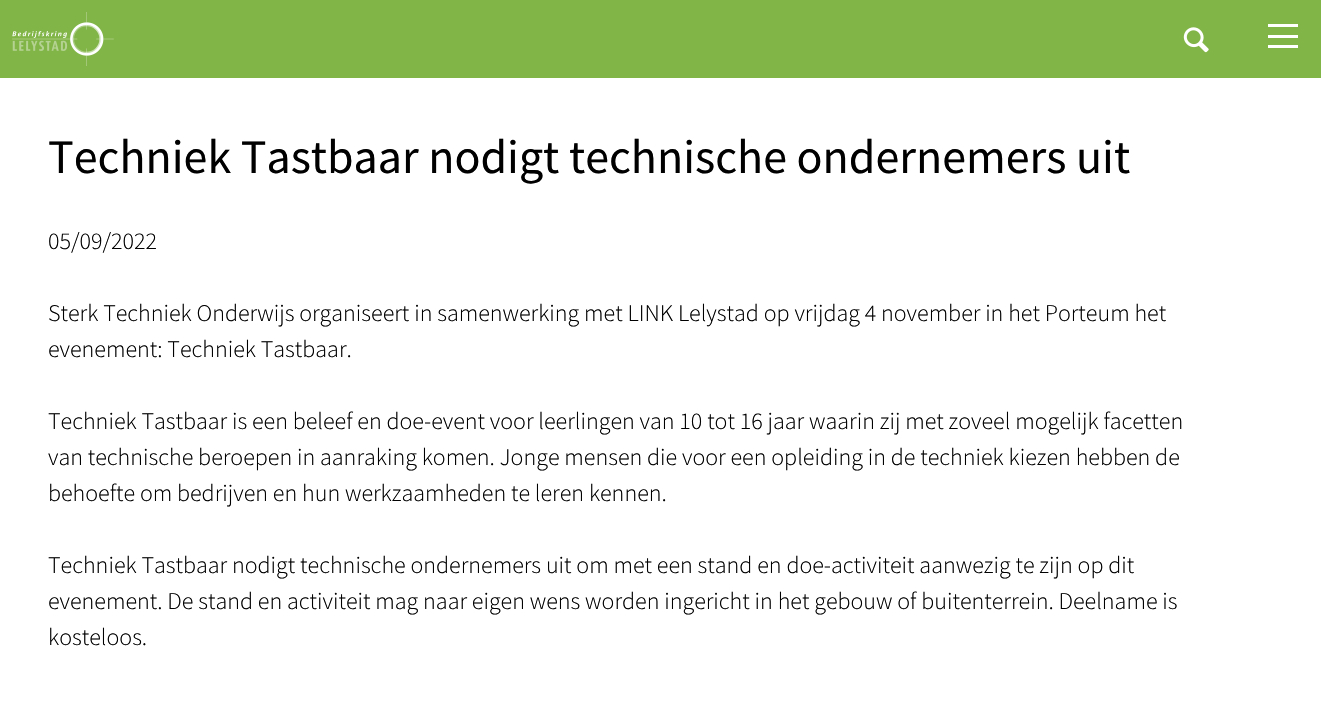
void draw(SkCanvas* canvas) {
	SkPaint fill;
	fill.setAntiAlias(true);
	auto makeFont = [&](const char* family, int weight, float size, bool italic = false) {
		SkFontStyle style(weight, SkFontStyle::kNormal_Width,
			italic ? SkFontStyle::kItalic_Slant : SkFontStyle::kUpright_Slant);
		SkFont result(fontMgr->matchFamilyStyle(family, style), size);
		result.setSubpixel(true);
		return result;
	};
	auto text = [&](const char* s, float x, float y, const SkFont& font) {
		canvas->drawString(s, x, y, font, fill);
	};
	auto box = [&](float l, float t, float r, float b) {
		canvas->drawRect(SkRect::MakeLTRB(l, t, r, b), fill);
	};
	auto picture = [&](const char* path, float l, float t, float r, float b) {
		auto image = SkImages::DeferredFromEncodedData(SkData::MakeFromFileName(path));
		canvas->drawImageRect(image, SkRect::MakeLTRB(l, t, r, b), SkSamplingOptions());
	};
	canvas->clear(0xFFFFFFFF);
	fill.setColor(0xFF82B548);
	box(0, 0, 1321, 78);
	fill.setColor(0xFFFFFFFF);
	box(1268, 35, 1298, 38);
	box(1268, 24, 1298, 27);
	box(1268, 45, 1298, 48);
	picture("image0.png", 12, 12, 114, 66);
	picture("image1.png", 1183, 27, 1209, 53);
	auto font1 = makeFont("Source Sans Pro", 400, 48);
	fill.setColor(0xFF000000);
	text("Techniek Tastbaar nodigt technische ondernemers uit", 48, 173, font1);
	auto font2 = makeFont("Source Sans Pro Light", 300, 24);
	text("05/09/2022", 48, 249, font2);
	text("Sterk Techniek Onderwijs organiseert in samenwerking met LINK Lelystad op vrijdag 4 november in het Porteum het", 48, 321, font2);
	text("evenement: Techniek Tastbaar.", 48, 357, font2);
	text("Techniek Tastbaar is een beleef en doe-event voor leerlingen van 10 tot 16 jaar waarin zij met zoveel mogelijk facetten", 48, 429, font2);
	text("van technische beroepen in aanraking komen. Jonge mensen die voor een opleiding in de techniek kiezen hebben de", 48, 465, font2);
	text("behoefte om bedrijven en hun werkzaamheden te leren kennen.", 48, 501, font2);
	text("Techniek Tastbaar nodigt technische ondernemers uit om met een stand en doe-activiteit aanwezig te zijn op dit", 48, 573, font2);
	text("evenement. De stand en activiteit mag naar eigen wens worden ingericht in het gebouw of buitenterrein. Deelname is", 48, 609, font2);
	text("kosteloos.", 48, 645, font2);
}
